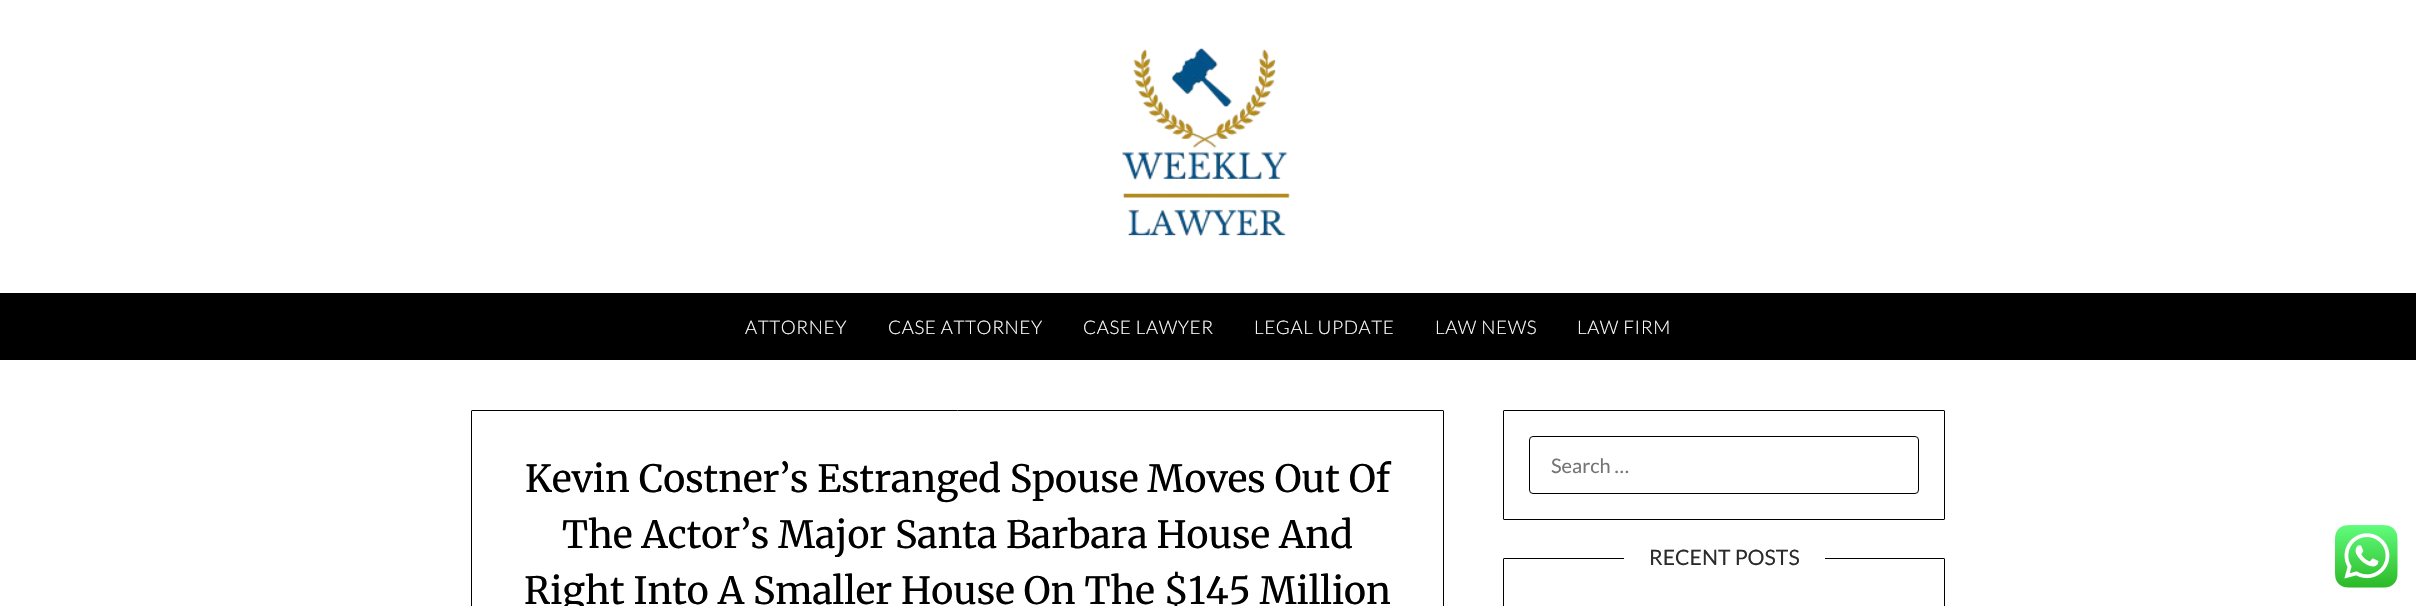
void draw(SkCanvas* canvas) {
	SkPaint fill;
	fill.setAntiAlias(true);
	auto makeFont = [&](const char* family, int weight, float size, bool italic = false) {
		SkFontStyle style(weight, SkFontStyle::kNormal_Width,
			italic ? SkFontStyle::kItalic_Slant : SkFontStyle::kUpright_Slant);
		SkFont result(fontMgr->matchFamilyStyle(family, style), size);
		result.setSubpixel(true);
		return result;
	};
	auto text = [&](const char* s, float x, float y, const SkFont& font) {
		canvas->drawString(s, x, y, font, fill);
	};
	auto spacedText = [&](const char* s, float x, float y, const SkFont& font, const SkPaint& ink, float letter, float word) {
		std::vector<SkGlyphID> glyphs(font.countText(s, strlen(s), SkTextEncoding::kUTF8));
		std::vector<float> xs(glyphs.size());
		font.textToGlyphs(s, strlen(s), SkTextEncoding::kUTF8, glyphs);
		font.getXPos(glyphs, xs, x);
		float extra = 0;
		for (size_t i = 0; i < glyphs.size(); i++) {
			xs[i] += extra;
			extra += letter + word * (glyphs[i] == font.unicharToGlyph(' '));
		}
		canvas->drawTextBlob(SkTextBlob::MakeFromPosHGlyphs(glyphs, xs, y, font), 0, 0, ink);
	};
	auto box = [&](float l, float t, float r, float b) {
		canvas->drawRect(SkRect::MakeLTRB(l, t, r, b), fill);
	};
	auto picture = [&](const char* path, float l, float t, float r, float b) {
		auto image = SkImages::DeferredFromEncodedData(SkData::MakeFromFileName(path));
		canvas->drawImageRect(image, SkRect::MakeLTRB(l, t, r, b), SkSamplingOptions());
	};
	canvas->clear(0xFFFFFFFF);
	picture("image0.png", 1122, 48, 1290, 237);
	fill.setColor(0xFF000000);
	box(0, 293, 2416, 360);
	fill.setStyle(SkPaint::kStroke_Style);
	fill.setStrokeWidth(1);
	canvas->drawRoundRect(SkRect::MakeLTRB(471.5f, 410.5f, 1443.5f, 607.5f), 0.5f, 0.5f, fill);
	canvas->drawRoundRect(SkRect::MakeLTRB(1503.5f, 410.5f, 1944.5f, 519.5f), 0.5f, 0.5f, fill);
	canvas->drawRoundRect(SkRect::MakeLTRB(1529.5f, 436.5f, 1918.5f, 493.5f), 3.5f, 3.5f, fill);
	canvas->drawRoundRect(SkRect::MakeLTRB(1503.5f, 558.5f, 1944.5f, 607.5f), 0.5f, 0.5f, fill);
	fill.setStyle(SkPaint::kFill_Style);
	fill.setColor(0xFFFFFFFF);
	box(1624, 558, 1825, 559);
	picture("image1.png", 2335, 525, 2398, 588);
	auto font1 = makeFont("Lato", 300, 18.75f);
	spacedText("ATTORNEY", 745, 334, font1, fill, 0.6f, 0);
	spacedText("CASE ATTORNEY", 888, 334, font1, fill, 0.6f, 0);
	spacedText("CASE LAWYER", 1083, 334, font1, fill, 0.6f, 0);
	spacedText("LEGAL UPDATE", 1254, 334, font1, fill, 0.6f, 0);
	spacedText("LAW NEWS", 1435, 334, font1, fill, 0.6f, 0);
	spacedText("LAW FIRM", 1577, 334, font1, fill, 0.6f, 0);
	auto font2 = makeFont("Merriweather", 300, 37.5f);
	fill.setColor(0xFF000000);
	text("Kevin Costner’s Estranged Spouse Moves Out Of", 525, 492, font2);
	text("The Actor’s Major Santa Barbara House And", 562, 548, font2);
	text("Right Into A Smaller House On The $145 Million", 524, 604, font2);
	auto font3 = makeFont("Lato", 400, 20);
	fill.setColor(0xFF757575);
	text("Search …", 1551, 473, font3);
	auto font4 = makeFont("Lato", 400, 21.25f);
	fill.setColor(0xFF2B2B2B);
	text("RECENT POSTS", 1649, 565, font4);
}
